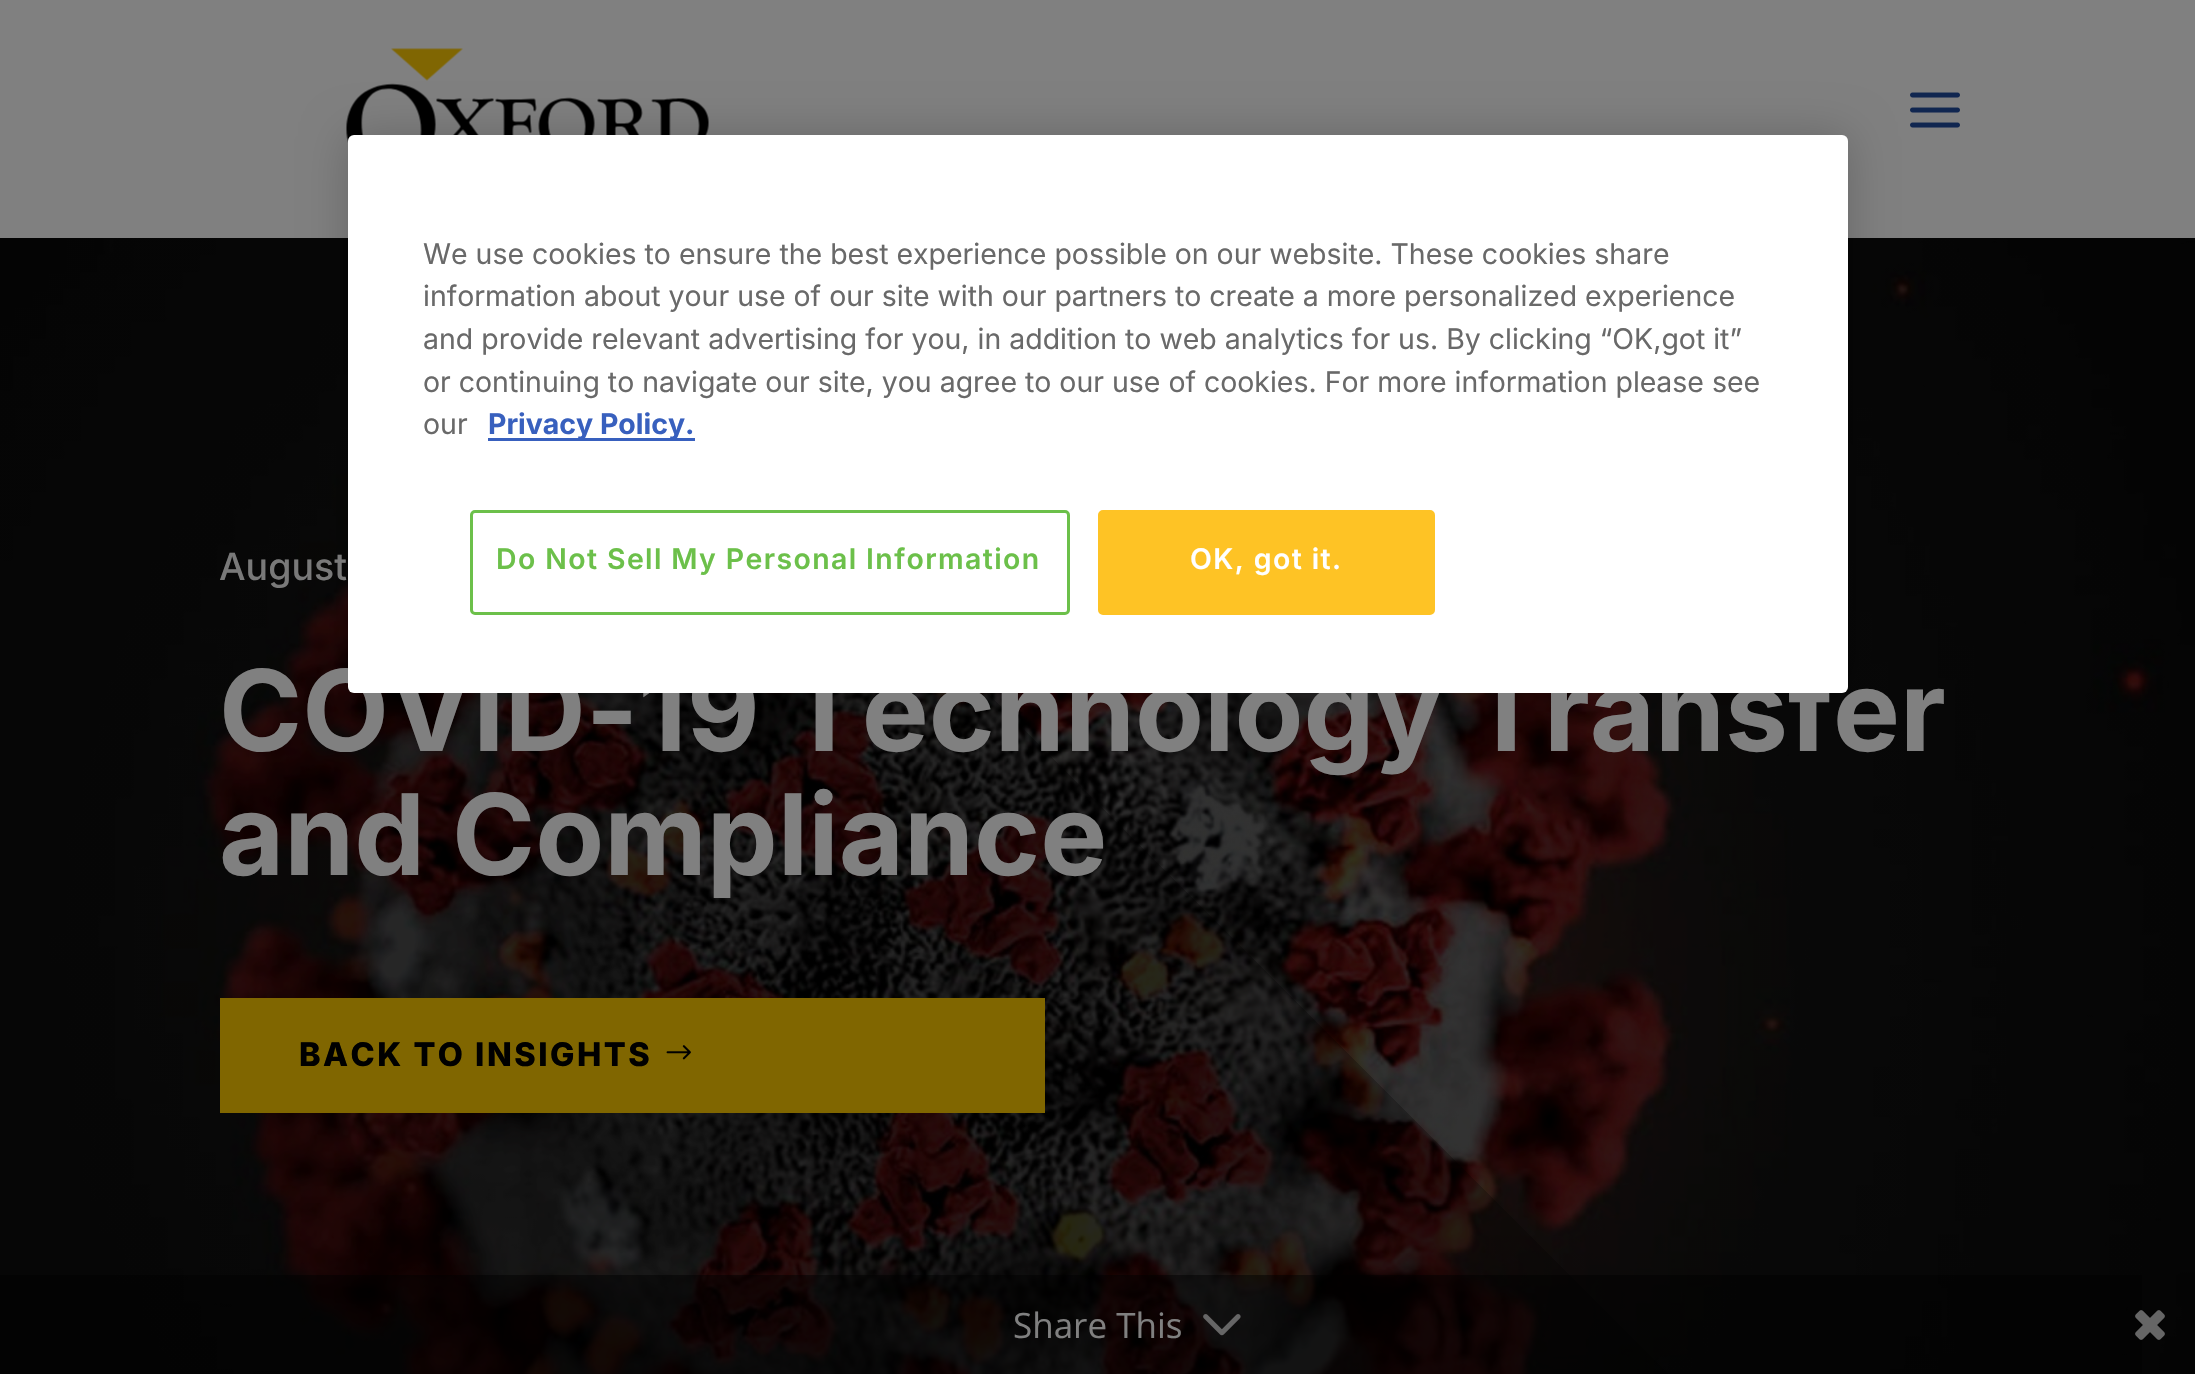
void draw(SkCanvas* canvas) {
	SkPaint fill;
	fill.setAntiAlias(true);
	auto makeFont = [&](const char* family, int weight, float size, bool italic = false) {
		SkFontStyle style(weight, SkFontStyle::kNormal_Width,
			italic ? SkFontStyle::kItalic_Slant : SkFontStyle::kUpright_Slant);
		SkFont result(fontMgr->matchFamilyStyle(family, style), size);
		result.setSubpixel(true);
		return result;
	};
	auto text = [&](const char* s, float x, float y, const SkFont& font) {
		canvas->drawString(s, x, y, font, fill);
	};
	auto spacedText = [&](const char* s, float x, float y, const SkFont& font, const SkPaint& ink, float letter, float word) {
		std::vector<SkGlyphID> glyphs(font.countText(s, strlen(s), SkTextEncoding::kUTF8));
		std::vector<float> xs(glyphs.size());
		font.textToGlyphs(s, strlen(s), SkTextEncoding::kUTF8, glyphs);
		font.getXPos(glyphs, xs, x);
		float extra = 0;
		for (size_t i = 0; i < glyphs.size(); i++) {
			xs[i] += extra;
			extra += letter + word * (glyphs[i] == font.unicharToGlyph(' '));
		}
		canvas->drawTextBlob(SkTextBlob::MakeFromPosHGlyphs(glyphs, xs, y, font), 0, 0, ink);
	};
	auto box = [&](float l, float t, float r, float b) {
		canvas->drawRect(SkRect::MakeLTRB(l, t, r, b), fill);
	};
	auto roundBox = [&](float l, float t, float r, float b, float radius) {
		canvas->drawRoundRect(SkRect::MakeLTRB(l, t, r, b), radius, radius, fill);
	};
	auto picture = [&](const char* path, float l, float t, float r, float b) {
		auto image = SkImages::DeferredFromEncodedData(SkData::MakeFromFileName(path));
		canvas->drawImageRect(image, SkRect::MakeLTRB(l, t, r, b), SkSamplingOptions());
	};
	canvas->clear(0xFFFFFFFF);
	picture("image2.png", 0, 238, 2195, 1374);
	fill.setColor(0x1A000000);
	box(860, 238, 1128, 240);
	fill.setColor(0xFF808080);
	box(0, 0, 2195, 238);
	picture("image0.png", 346, 48, 709, 143);
	picture("image1.png", 1910, 92, 1960, 128);
	fill.setColor(0x33000000);
	fill.setMaskFilter(SkMaskFilter::MakeBlur(kNormal_SkBlurStyle, 22.5f));
	canvas->drawRoundRect(SkRect::MakeLTRB(348, 135, 1848, 693), 6, 6, fill);
	fill.setMaskFilter(nullptr);
	fill.setColor(0xFF806600);
	box(220, 998, 1045, 1113);
	picture("image3.png", 666, 1045, 691, 1060);
	fill.setColor(0x80000000);
	box(0, 1275, 2142, 1374);
	picture("image4.png", 1203, 1314, 1241, 1336);
	picture("image5.png", 2135, 1310, 2165, 1340);
	auto font1 = makeFont("Inter", 500, 37.5f);
	fill.setColor(0xFF797979);
	text("August", 219, 580, font1);
	auto font2 = makeFont("Inter", 700, 112.5f);
	fill.setColor(0xFF808080);
	text("COVID-19 Technology Transfer", 219, 751, font2);
	fill.setColor(0xFFFFFFFF);
	roundBox(348, 135, 1848, 693, 6);
	fill.setStyle(SkPaint::kStroke_Style);
	fill.setStrokeWidth(3);
	fill.setColor(0xFF6CC04A);
	canvas->drawRoundRect(SkRect::MakeLTRB(471.5f, 511.5f, 1068.5f, 613.5f), 3.5f, 3.5f, fill);
	auto font3 = makeFont("Inter", 600, 28.45f);
	fill.setStyle(SkPaint::kFill_Style);
	spacedText("Do Not Sell My Personal Information", 496, 569, font3, fill, 1.4f, 0);
	fill.setColor(0xFFFEC325);
	canvas->drawRoundRect(SkRect::MakeLTRB(1099.5f, 511.5f, 1433.5f, 613.5f), 3.5f, 3.5f, fill);
	fill.setStyle(SkPaint::kStroke_Style);
	canvas->drawRoundRect(SkRect::MakeLTRB(1099.5f, 511.5f, 1433.5f, 613.5f), 3.5f, 3.5f, fill);
	fill.setStyle(SkPaint::kFill_Style);
	fill.setColor(0xFFFFFFFF);
	spacedText("OK, got it.", 1190, 569, font3, fill, 1.4f, 0);
	fill.setColor(0xFF3860BE);
	box(488, 438, 695, 441);
	auto font4 = makeFont("Inter", 700, 28.45f);
	text("Privacy Policy.", 488, 434, font4);
	auto font5 = makeFont("Inter", 400, 28.45f);
	fill.setColor(0xFF696969);
	text("our", 423, 434, font5);
	text("or continuing to navigate our site, you agree to our use of cookies. For more information please see", 423, 392, font5);
	text("and provide relevant advertising for you, in addition to web analytics for us. By clicking “OK,got it”", 423, 349, font5);
	text("information about your use of our site with our partners to create a more personalized experience", 423, 306, font5);
	text("We use cookies to ensure the best experience possible on our website. These cookies share", 423, 264, font5);
	fill.setColor(0xFF808080);
	text("and Compliance", 219, 875, font2);
	auto font6 = makeFont("Inter", 800, 32.5f);
	fill.setColor(0xFF000000);
	spacedText("BACK TO INSIGHTS", 299, 1066, font6, fill, 2.5f, 0);
	auto font7 = makeFont("Open Sans", 400, 35);
	fill.setColor(0xFF808080);
	text("Share This", 1013, 1338, font7);
}
